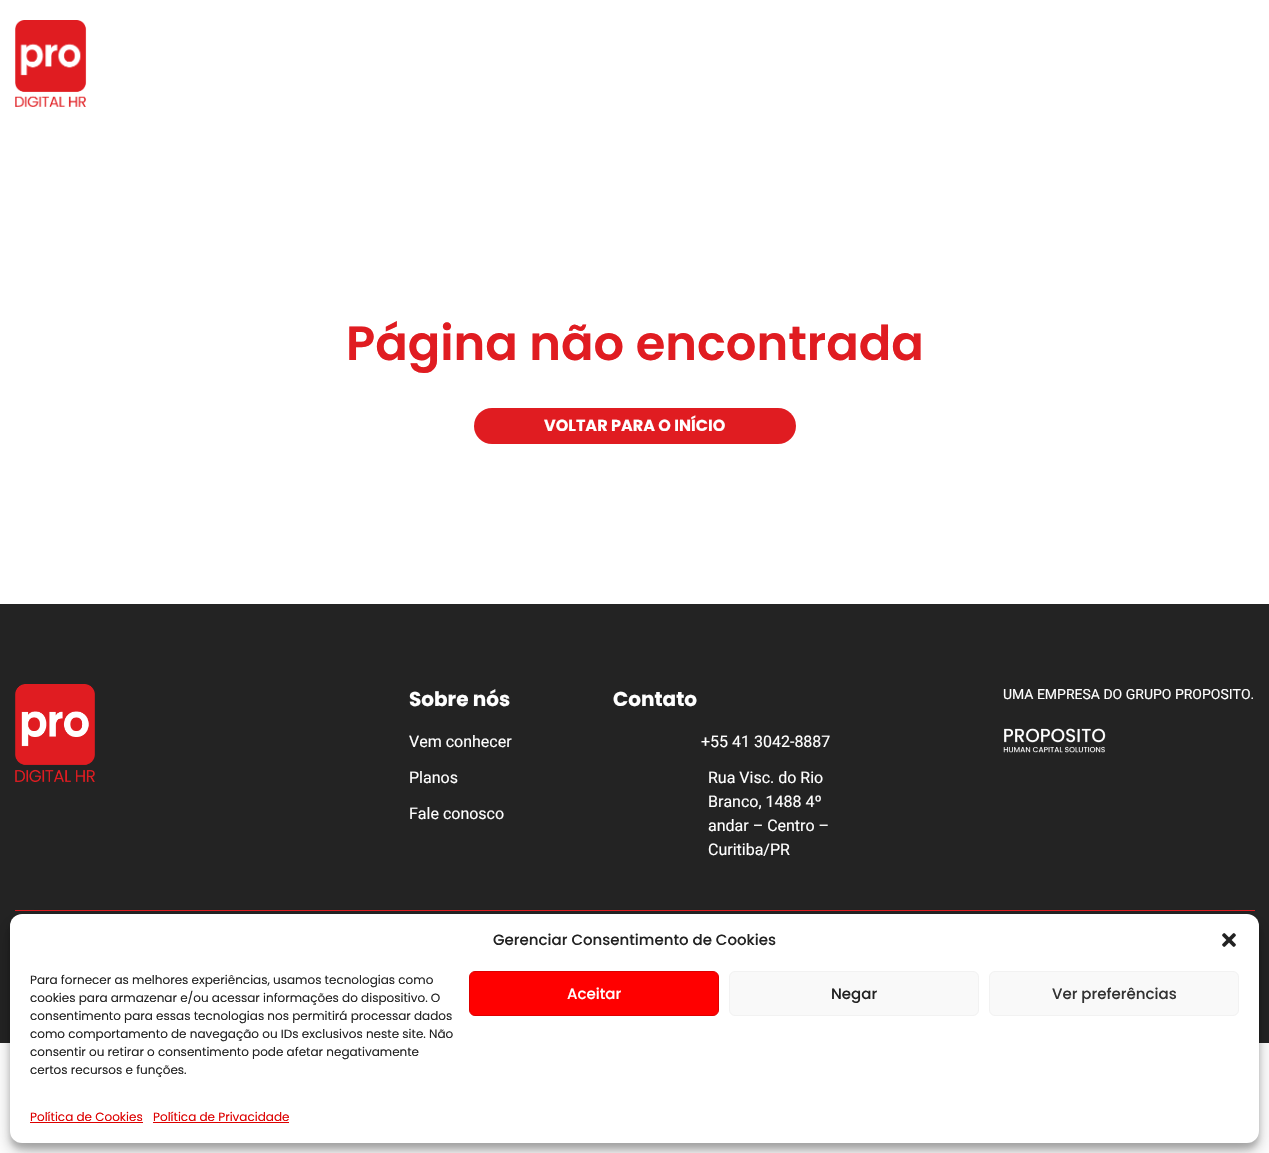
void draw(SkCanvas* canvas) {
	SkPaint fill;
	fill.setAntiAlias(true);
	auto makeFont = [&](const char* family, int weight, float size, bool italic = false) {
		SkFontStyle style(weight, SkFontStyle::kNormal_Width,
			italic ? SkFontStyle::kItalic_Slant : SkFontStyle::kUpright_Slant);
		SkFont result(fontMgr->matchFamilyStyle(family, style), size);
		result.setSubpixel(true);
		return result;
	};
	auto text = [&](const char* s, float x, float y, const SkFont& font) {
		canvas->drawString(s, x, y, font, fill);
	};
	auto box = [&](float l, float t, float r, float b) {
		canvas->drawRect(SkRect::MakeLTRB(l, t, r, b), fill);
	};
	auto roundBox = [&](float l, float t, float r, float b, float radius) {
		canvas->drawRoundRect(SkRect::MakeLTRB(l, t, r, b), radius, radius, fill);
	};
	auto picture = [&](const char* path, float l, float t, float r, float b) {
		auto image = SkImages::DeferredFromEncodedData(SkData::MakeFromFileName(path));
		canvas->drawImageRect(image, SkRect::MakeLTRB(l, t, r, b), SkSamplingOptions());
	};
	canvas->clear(0xFFFFFFFF);
	picture("image0.png", 15, 20, 87, 107);
	fill.setColor(0xFFE01C21);
	roundBox(474, 408, 796, 444, 18);
	fill.setColor(0xFF232323);
	box(0, 604, 1269, 1043);
	fill.setColor(0xFFE01C21);
	box(15, 910, 1255, 911);
	picture("image1.png", 15, 684, 95, 782);
	picture("image2.png", 1003, 728, 1106, 753);
	fill.setColor(0x3B000000);
	fill.setMaskFilter(SkMaskFilter::MakeBlur(kNormal_SkBlurStyle, 3));
	canvas->drawRoundRect(SkRect::MakeLTRB(10, 920, 1259, 1149), 12, 12, fill);
	fill.setMaskFilter(nullptr);
	fill.setColor(0x30000000);
	fill.setMaskFilter(SkMaskFilter::MakeBlur(kNormal_SkBlurStyle, 10));
	canvas->drawRoundRect(SkRect::MakeLTRB(10, 924, 1259, 1153), 12, 12, fill);
	fill.setMaskFilter(nullptr);
	fill.setColor(0xFFFFFFFF);
	roundBox(10, 914, 1259, 1143, 12);
	picture("image3.png", 1222, 933, 1236, 947);
	fill.setColor(0xFFFF0000);
	canvas->drawRoundRect(SkRect::MakeLTRB(469.5f, 971.5f, 718.5f, 1015.5f), 5.5f, 5.5f, fill);
	fill.setStyle(SkPaint::kStroke_Style);
	fill.setStrokeWidth(1);
	fill.setColor(0xFFDD0000);
	canvas->drawRoundRect(SkRect::MakeLTRB(469.5f, 971.5f, 718.5f, 1015.5f), 5.5f, 5.5f, fill);
	fill.setStyle(SkPaint::kFill_Style);
	fill.setColor(0xFFF9F9F9);
	canvas->drawRoundRect(SkRect::MakeLTRB(729.5f, 971.5f, 978.5f, 1015.5f), 5.5f, 5.5f, fill);
	fill.setStyle(SkPaint::kStroke_Style);
	fill.setColor(0xFFF2F2F2);
	canvas->drawRoundRect(SkRect::MakeLTRB(729.5f, 971.5f, 978.5f, 1015.5f), 5.5f, 5.5f, fill);
	fill.setStyle(SkPaint::kFill_Style);
	fill.setColor(0xFFF9F9F9);
	canvas->drawRoundRect(SkRect::MakeLTRB(989.5f, 971.5f, 1238.5f, 1015.5f), 5.5f, 5.5f, fill);
	fill.setStyle(SkPaint::kStroke_Style);
	fill.setColor(0xFFF2F2F2);
	canvas->drawRoundRect(SkRect::MakeLTRB(989.5f, 971.5f, 1238.5f, 1015.5f), 5.5f, 5.5f, fill);
	fill.setStyle(SkPaint::kFill_Style);
	fill.setColor(0xFFDD0000);
	box(30, 1122, 143, 1123);
	box(153, 1122, 289, 1123);
	auto font1 = makeFont("Poppins", 600, 48);
	fill.setColor(0xFFE01C21);
	text("Página não encontrada", 346, 360, font1);
	auto font2 = makeFont("Poppins", 700, 16);
	fill.setColor(0xFFFFFFFF);
	text("VOLTAR PARA O INÍCIO", 544, 431, font2);
	auto font3 = makeFont("Poppins", 700, 20);
	text("Sobre nós", 409, 706, font3);
	auto font4 = makeFont("Roboto", 400, 16);
	text("Vem conhecer", 409, 747, font4);
	text("Planos", 409, 783, font4);
	text("Fale conosco", 409, 819, font4);
	text("Contato", 613, 706, font3);
	text("+55 41 3042-8887", 701, 747, font4);
	text("Rua Visc. do Rio", 708, 783, font4);
	text("Branco, 1488 4º", 708, 807, font4);
	text("andar – Centro –", 708, 831, font4);
	text("Curitiba/PR", 708, 855, font4);
	auto font5 = makeFont("Roboto", 400, 14);
	text("UMA EMPRESA DO GRUPO PROPOSITO.", 1003, 699, font5);
	auto font6 = makeFont("Poppins", 500, 15);
	fill.setColor(0xFF222222);
	text("Gerenciar Consentimento de Cookies", 493, 945, font6);
	auto font7 = makeFont("Poppins", 400, 12);
	text("Para fornecer as melhores experiências, usamos tecnologias como", 30, 984, font7);
	text("cookies para armazenar e/ou acessar informações do dispositivo. O", 30, 1002, font7);
	text("consentimento para essas tecnologias nos permitirá processar dados", 30, 1020, font7);
	text("como comportamento de navegação ou IDs exclusivos neste site. Não", 30, 1038, font7);
	text("consentir ou retirar o consentimento pode afetar negativamente", 30, 1056, font7);
	text("certos recursos e funções.", 30, 1074, font7);
	fill.setColor(0xFFFFFFFF);
	text("Aceitar", 567, 999, font6);
	fill.setColor(0xFF222222);
	text("Negar", 831, 999, font6);
	fill.setColor(0xFF333333);
	text("Ver preferências", 1052, 999, font6);
	fill.setColor(0xFFDD0000);
	text("Política de Cookies", 30, 1121, font7);
	text("Política de Privacidade", 153, 1121, font7);
}
